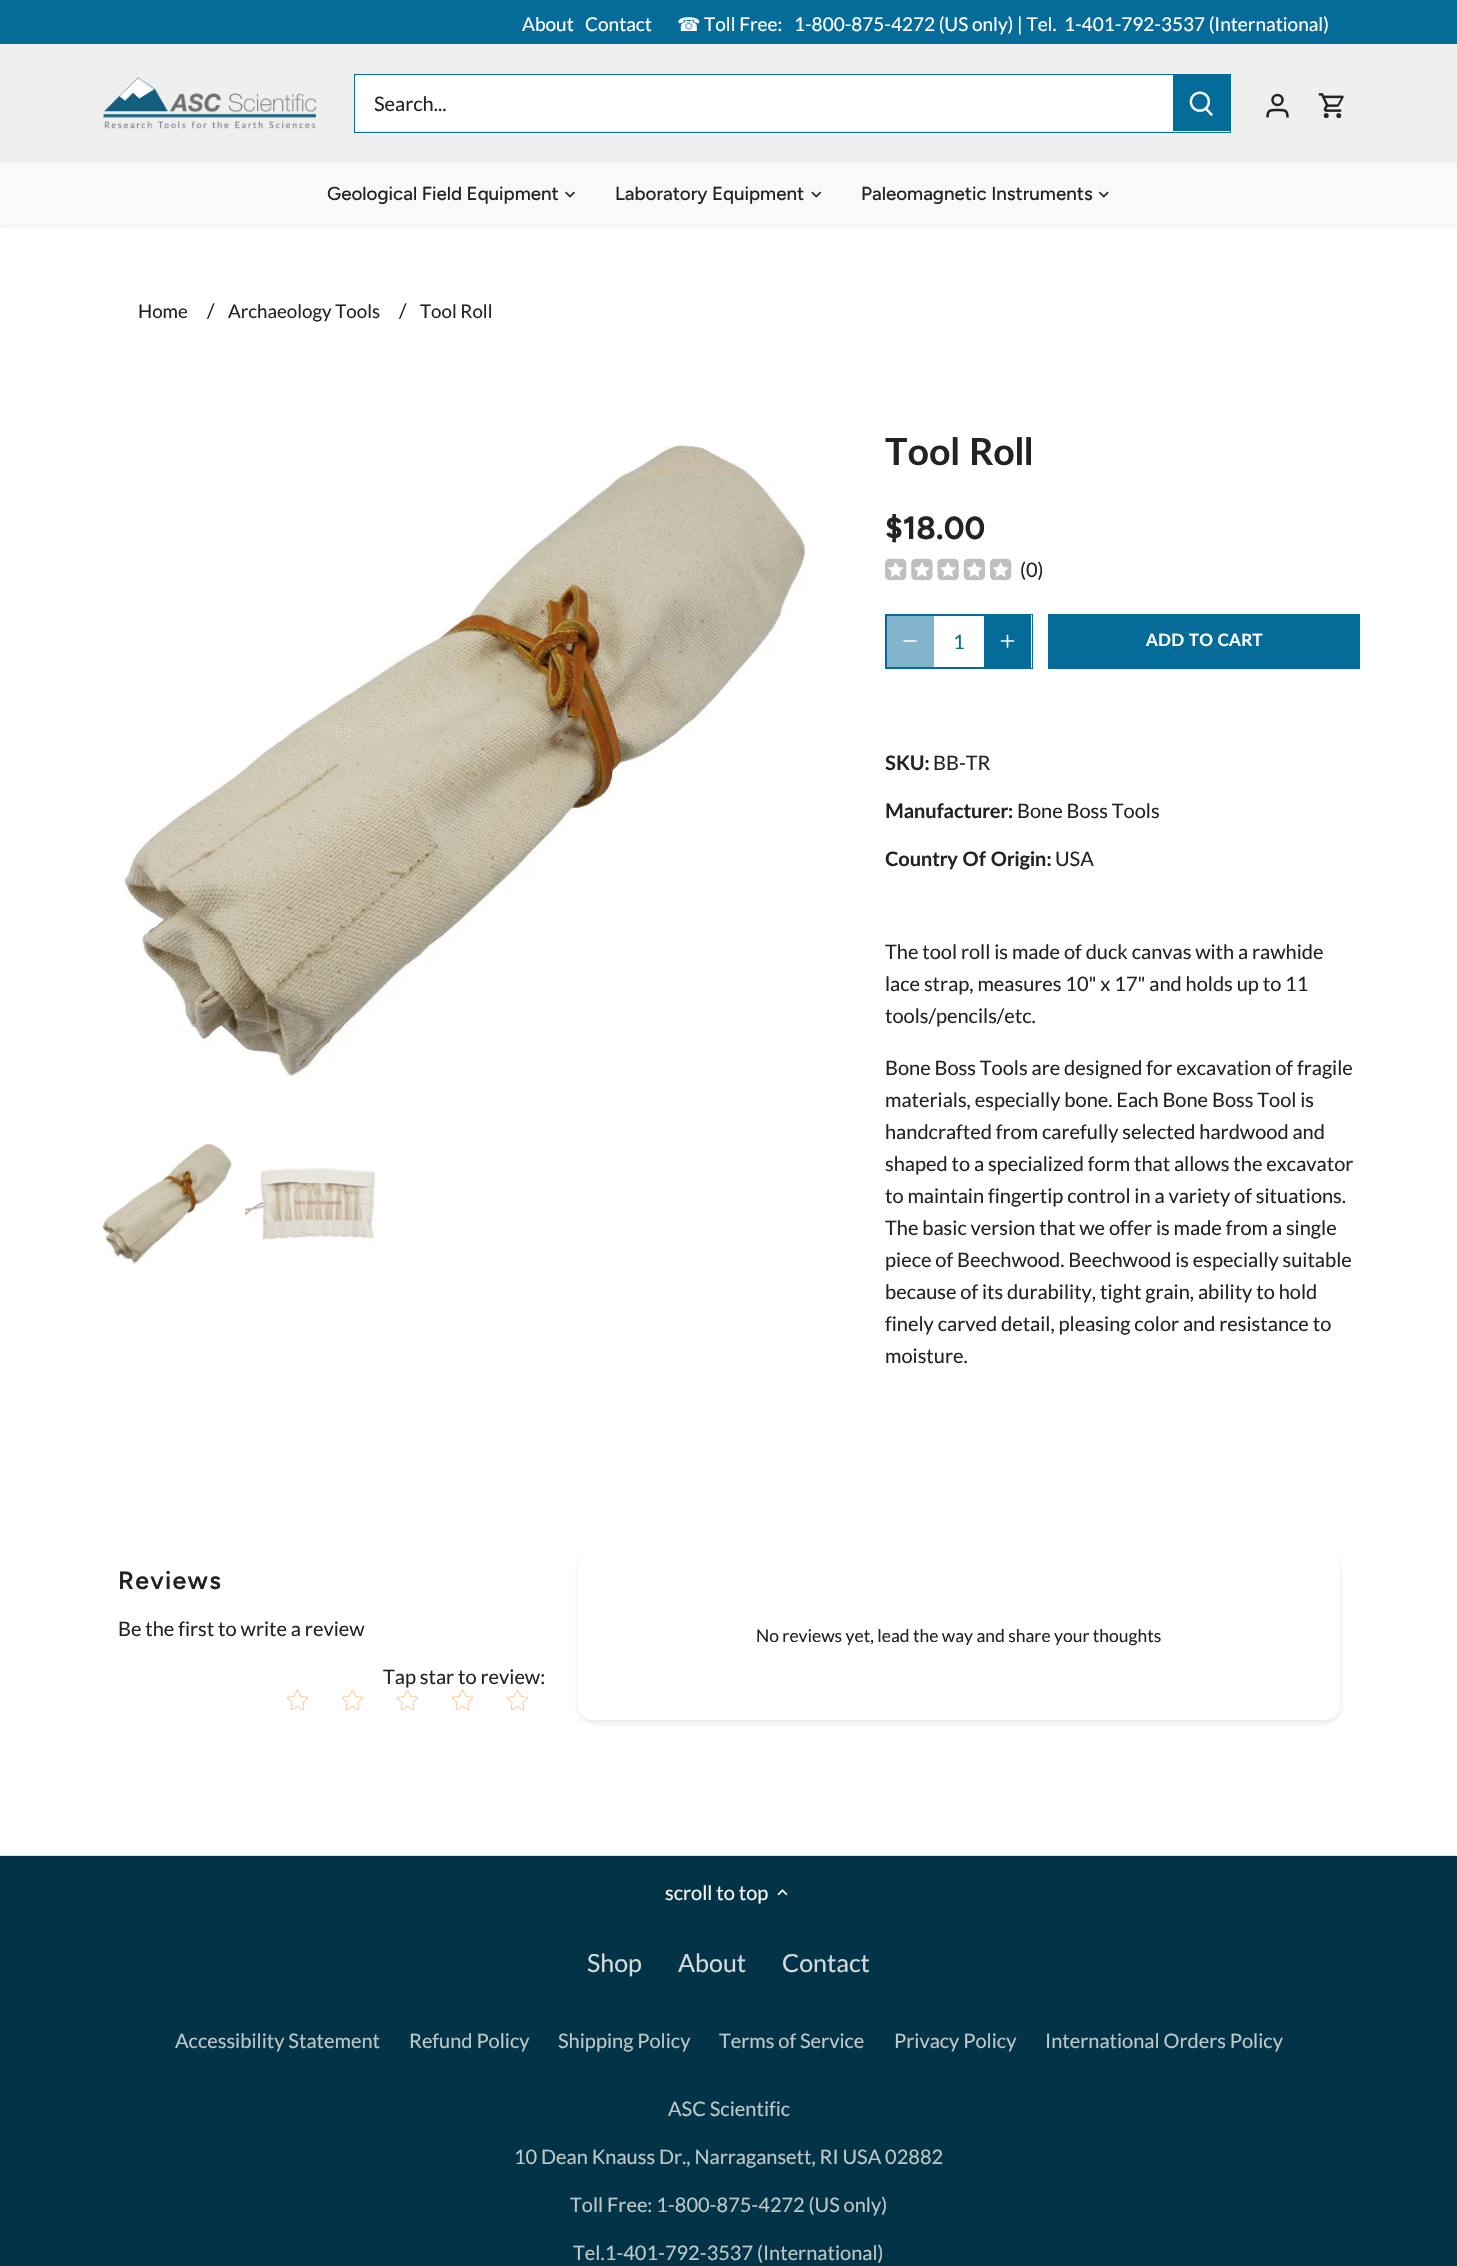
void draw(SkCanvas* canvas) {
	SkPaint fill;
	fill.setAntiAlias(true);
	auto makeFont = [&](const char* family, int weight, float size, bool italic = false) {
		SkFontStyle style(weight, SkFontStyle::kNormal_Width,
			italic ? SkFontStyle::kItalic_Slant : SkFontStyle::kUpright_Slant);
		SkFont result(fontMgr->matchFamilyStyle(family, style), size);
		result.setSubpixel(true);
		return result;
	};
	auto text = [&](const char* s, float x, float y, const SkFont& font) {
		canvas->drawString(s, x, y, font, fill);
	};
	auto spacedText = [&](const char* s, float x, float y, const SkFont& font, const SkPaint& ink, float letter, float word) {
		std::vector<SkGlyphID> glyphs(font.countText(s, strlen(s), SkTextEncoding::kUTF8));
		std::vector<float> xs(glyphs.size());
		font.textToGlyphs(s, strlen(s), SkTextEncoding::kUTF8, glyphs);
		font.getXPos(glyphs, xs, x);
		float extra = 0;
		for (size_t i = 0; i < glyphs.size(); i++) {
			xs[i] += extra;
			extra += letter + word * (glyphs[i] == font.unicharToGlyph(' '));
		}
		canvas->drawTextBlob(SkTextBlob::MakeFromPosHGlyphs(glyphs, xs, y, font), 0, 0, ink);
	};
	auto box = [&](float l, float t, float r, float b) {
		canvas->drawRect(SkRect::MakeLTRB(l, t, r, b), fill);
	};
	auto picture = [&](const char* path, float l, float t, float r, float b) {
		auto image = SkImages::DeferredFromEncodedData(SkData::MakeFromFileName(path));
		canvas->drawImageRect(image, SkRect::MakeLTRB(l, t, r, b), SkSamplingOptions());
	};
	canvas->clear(0xFF023347);
	fill.setColor(0xFFFFFFFF);
	box(0, 225, 1457, 1855);
	fill.setColor(0x14000000);
	fill.setMaskFilter(SkMaskFilter::MakeBlur(kNormal_SkBlurStyle, 2));
	canvas->drawRect(SkRect::MakeLTRB(-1, 43, 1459, 226), fill);
	fill.setMaskFilter(nullptr);
	fill.setColor(0xFF056C99);
	box(0, 0, 1457, 44);
	fill.setColor(0xFFF9F9F9);
	box(0, 163, 1457, 225);
	fill.setColor(0xFFEFEFEF);
	box(0, 44, 1457, 163);
	picture("image0.png", 103, 77, 317, 129);
	fill.setStyle(SkPaint::kStroke_Style);
	fill.setStrokeWidth(1);
	fill.setColor(0xFF056C99);
	canvas->drawRect(SkRect::MakeLTRB(354.5f, 74.5f, 1230.5f, 132.5f), fill);
	fill.setStyle(SkPaint::kFill_Style);
	fill.setColor(0xFFFFFFFF);
	box(355, 75, 1173, 131);
	fill.setColor(0xFF056C99);
	box(1173, 75, 1230, 131);
	picture("image1.png", 1189, 91, 1213, 116);
	fill.setStyle(SkPaint::kStroke_Style);
	fill.setStrokeWidth(2.5f);
	fill.setColor(0xFF212326);
	canvas->drawCircle(1277.5f, 100, 5, fill);
	canvas->drawPath(SkPathBuilder().moveTo(1287.5f, 117.5f).cubicTo(1287.5f, 109.5f, 1284.5f, 110, 1277.5f, 110).cubicTo(1270.5f, 110, 1267.5f, 109.5f, 1267.5f, 117.5f).detach(), fill);
	picture("image2.png", 1318, 93, 1344, 119);
	picture("image3.png", 565, 191, 575, 198);
	picture("image4.png", 811, 191, 822, 198);
	picture("image5.png", 1098, 191, 1109, 198);
	picture("image6.png", 122, 443, 808, 1077);
	picture("image7.png", 102, 1143, 233, 1264);
	picture("image8.png", 245, 1168, 377, 1242);
	picture("image9.png", 885, 558, 907, 581);
	picture("image10.png", 887, 562, 904, 577);
	picture("image11.png", 911, 558, 933, 581);
	picture("image12.png", 914, 562, 930, 577);
	picture("image13.png", 937, 558, 959, 581);
	picture("image14.png", 940, 562, 956, 577);
	picture("image15.png", 963, 558, 985, 581);
	picture("image16.png", 966, 562, 983, 577);
	picture("image9.png", 990, 558, 1012, 581);
	picture("image10.png", 992, 562, 1009, 577);
	fill.setStrokeWidth(1);
	fill.setColor(0xFF056C99);
	canvas->drawRect(SkRect::MakeLTRB(886.5f, 615.5f, 1030.5f, 667.5f), fill);
	canvas->drawRect(SkRect::MakeLTRB(885.5f, 614.5f, 1032.5f, 668.5f), fill);
	fill.setStyle(SkPaint::kFill_Style);
	fill.setColor(0x80056C99);
	box(887, 616, 934, 667);
	fill.setStyle(SkPaint::kStroke_Style);
	fill.setStrokeWidth(1.7f);
	fill.setStrokeCap(SkPaint::kRound_Cap);
	fill.setStrokeJoin(SkPaint::kRound_Join);
	fill.setColor(0xFFFFFFFF);
	canvas->drawPath(SkPathBuilder().moveTo(904, 641).lineTo(916, 641).detach(), fill);
	fill.setStyle(SkPaint::kFill_Style);
	fill.setColor(0xFF056C99);
	box(984, 616, 1030, 667);
	fill.setStyle(SkPaint::kStroke_Style);
	fill.setColor(0xFFFFFFFF);
	canvas->drawPath(SkPathBuilder().moveTo(1007.5f, 635.5f).lineTo(1007.5f, 647).moveTo(1001.5f, 641).lineTo(1013.5f, 641).detach(), fill);
	fill.setStyle(SkPaint::kFill_Style);
	fill.setColor(0xFF056C99);
	box(1048, 614, 1360, 669);
	picture("image17.png", 287, 1690, 308, 1710);
	picture("image17.png", 342, 1690, 363, 1710);
	picture("image17.png", 397, 1690, 418, 1710);
	picture("image17.png", 452, 1690, 473, 1710);
	picture("image17.png", 507, 1690, 528, 1710);
	canvas->save();
	canvas->clipPath(SkPathBuilder(SkPathFillType::kEvenOdd).moveTo(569, 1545).lineTo(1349, 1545).lineTo(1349, 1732).lineTo(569, 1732).close().moveTo(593, 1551).lineTo(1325, 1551).cubicTo(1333.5f, 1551, 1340, 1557.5f, 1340, 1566).lineTo(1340, 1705).cubicTo(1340, 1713.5f, 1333.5f, 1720, 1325, 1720).lineTo(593, 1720).cubicTo(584.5f, 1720, 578, 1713.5f, 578, 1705).lineTo(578, 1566).cubicTo(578, 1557.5f, 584.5f, 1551, 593, 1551).close().detach(), true);
	fill.setColor(0x1A1F2124);
	fill.setMaskFilter(SkMaskFilter::MakeBlur(kNormal_SkBlurStyle, 2.5f));
	canvas->drawRoundRect(SkRect::MakeLTRB(578, 1554, 1340, 1723), 15, 15, fill);
	fill.setMaskFilter(nullptr);
	canvas->restore();
	fill.setColor(0xFFE1E1E1);
	box(0, 1855, 1457, 1856);
	picture("image18.png", 777, 1889, 788, 1896);
	auto font1 = makeFont("Lato", 400, 19);
	fill.setColor(0xFFFFFFFF);
	text("About", 522, 31, font1);
	text("Contact", 585, 31, font1);
	auto font2 = makeFont("DejaVu Sans", 400, 19);
	text("☎", 677, 31, font2);
	text("Toll Free:", 704, 31, font1);
	text("1-800-875-4272 (US only) | Tel.", 794, 31, font1);
	text("1-401-792-3537 (International)", 1064, 31, font1);
	auto font3 = makeFont("Lato", 400, 20);
	fill.setColor(0xFF212326);
	text("Search...", 374, 111, font3);
	auto font4 = makeFont("Figtree", 500, 18.75f);
	text("Geological Field Equipment", 327, 200, font4);
	text("Laboratory Equipment", 615, 200, font4);
	text("Paleomagnetic Instruments", 861, 200, font4);
	auto font5 = makeFont("Lato", 400, 18.75f);
	text("Home", 138, 318, font5);
	text("/", 207, 318, font3);
	text("Archaeology Tools", 228, 318, font5);
	text("/", 399, 318, font3);
	text("Tool Roll", 420, 318, font5);
	auto font6 = makeFont("Lato", 700, 37.5f);
	text("Tool Roll", 885, 465, font6);
	auto font7 = makeFont("Figtree", 700, 32);
	text("$18.00", 885, 539, font7);
	text("(0)", 1020, 577, font3);
	fill.setColor(0xFF056C99);
	text("1", 953, 649, font3);
	auto font8 = makeFont("Lato", 700, 17);
	fill.setColor(0xFFFFFFFF);
	spacedText("ADD TO CART", 1146, 646, font8, fill, 0.25f, 0);
	fill.setStyle(SkPaint::kStroke_Style);
	fill.setStrokeWidth(2.5f);
	fill.setStrokeCap(SkPaint::kButt_Cap);
	fill.setStrokeJoin(SkPaint::kMiter_Join);
	fill.setColor(0xFF056C99);
	canvas->drawPath(SkPathBuilder().moveTo(1209, 646.5f).cubicTo(1206, 649.5f, 1201.5f, 649.5f, 1198.5f, 646.5f).detach(), fill);
	auto font9 = makeFont("Lato", 700, 20);
	fill.setStyle(SkPaint::kFill_Style);
	fill.setColor(0xFF212326);
	text("SKU:", 885, 770, font9);
	text("BB-TR", 933, 770, font3);
	text("Manufacturer:", 885, 818, font9);
	text("Bone Boss Tools", 1017, 818, font3);
	text("Country Of Origin:", 885, 866, font9);
	text("USA", 1055, 866, font3);
	text("The tool roll is made of duck canvas with a rawhide", 885, 959, font3);
	text("lace strap, measures 10\" x 17\" and holds up to 11", 885, 991, font3);
	text("tools/pencils/etc.", 885, 1023, font3);
	text("Bone Boss Tools are designed for excavation of fragile", 885, 1075, font3);
	text("materials, especially bone. Each Bone Boss Tool is", 885, 1107, font3);
	text("handcrafted from carefully selected hardwood and", 885, 1139, font3);
	text("shaped to a specialized form that allows the excavator", 885, 1171, font3);
	text("to maintain fingertip control in a variety of situations.", 885, 1203, font3);
	text("The basic version that we offer is made from a single", 885, 1235, font3);
	text("piece of Beechwood. Beechwood is especially suitable", 885, 1267, font3);
	text("because of its durability, tight grain, ability to hold", 885, 1299, font3);
	text("finely carved detail, pleasing color and resistance to", 885, 1331, font3);
	text("moisture.", 885, 1363, font3);
	auto font10 = makeFont("Figtree", 600, 25);
	spacedText("Reviews", 118, 1589, font10, fill, 1.25f, 0);
	text("Be the first to write a review", 118, 1636, font3);
	text("Tap star to review:", 383, 1684, font3);
	auto font11 = makeFont("Lato", 400, 17.5f);
	text("No reviews yet, lead the way and share your thoughts", 756, 1642, font11);
	fill.setColor(0xFFFAF9F6);
	text("scroll to top", 665, 1900, font3);
	auto font12 = makeFont("Lato", 400, 25);
	fill.setColor(0xFFD5DBDC);
	text("Shop", 587, 1972, font12);
	text("About", 678, 1972, font12);
	text("Contact", 782, 1972, font12);
	fill.setColor(0xFFBCC8CA);
	text("Accessibility Statement", 175, 2048, font3);
	text("Refund Policy", 409, 2048, font3);
	text("Shipping Policy", 558, 2048, font3);
	text("Terms of Service", 719, 2048, font3);
	text("Privacy Policy", 894, 2048, font3);
	text("International Orders Policy", 1045, 2048, font3);
	text("ASC Scientific", 668, 2116, font3);
	text("10 Dean Knauss Dr., Narragansett, RI USA 02882", 514, 2164, font3);
	text("Toll Free: 1-800-875-4272 (US only)", 570, 2212, font3);
	text("Tel.1-401-792-3537 (International)", 573, 2260, font3);
}
